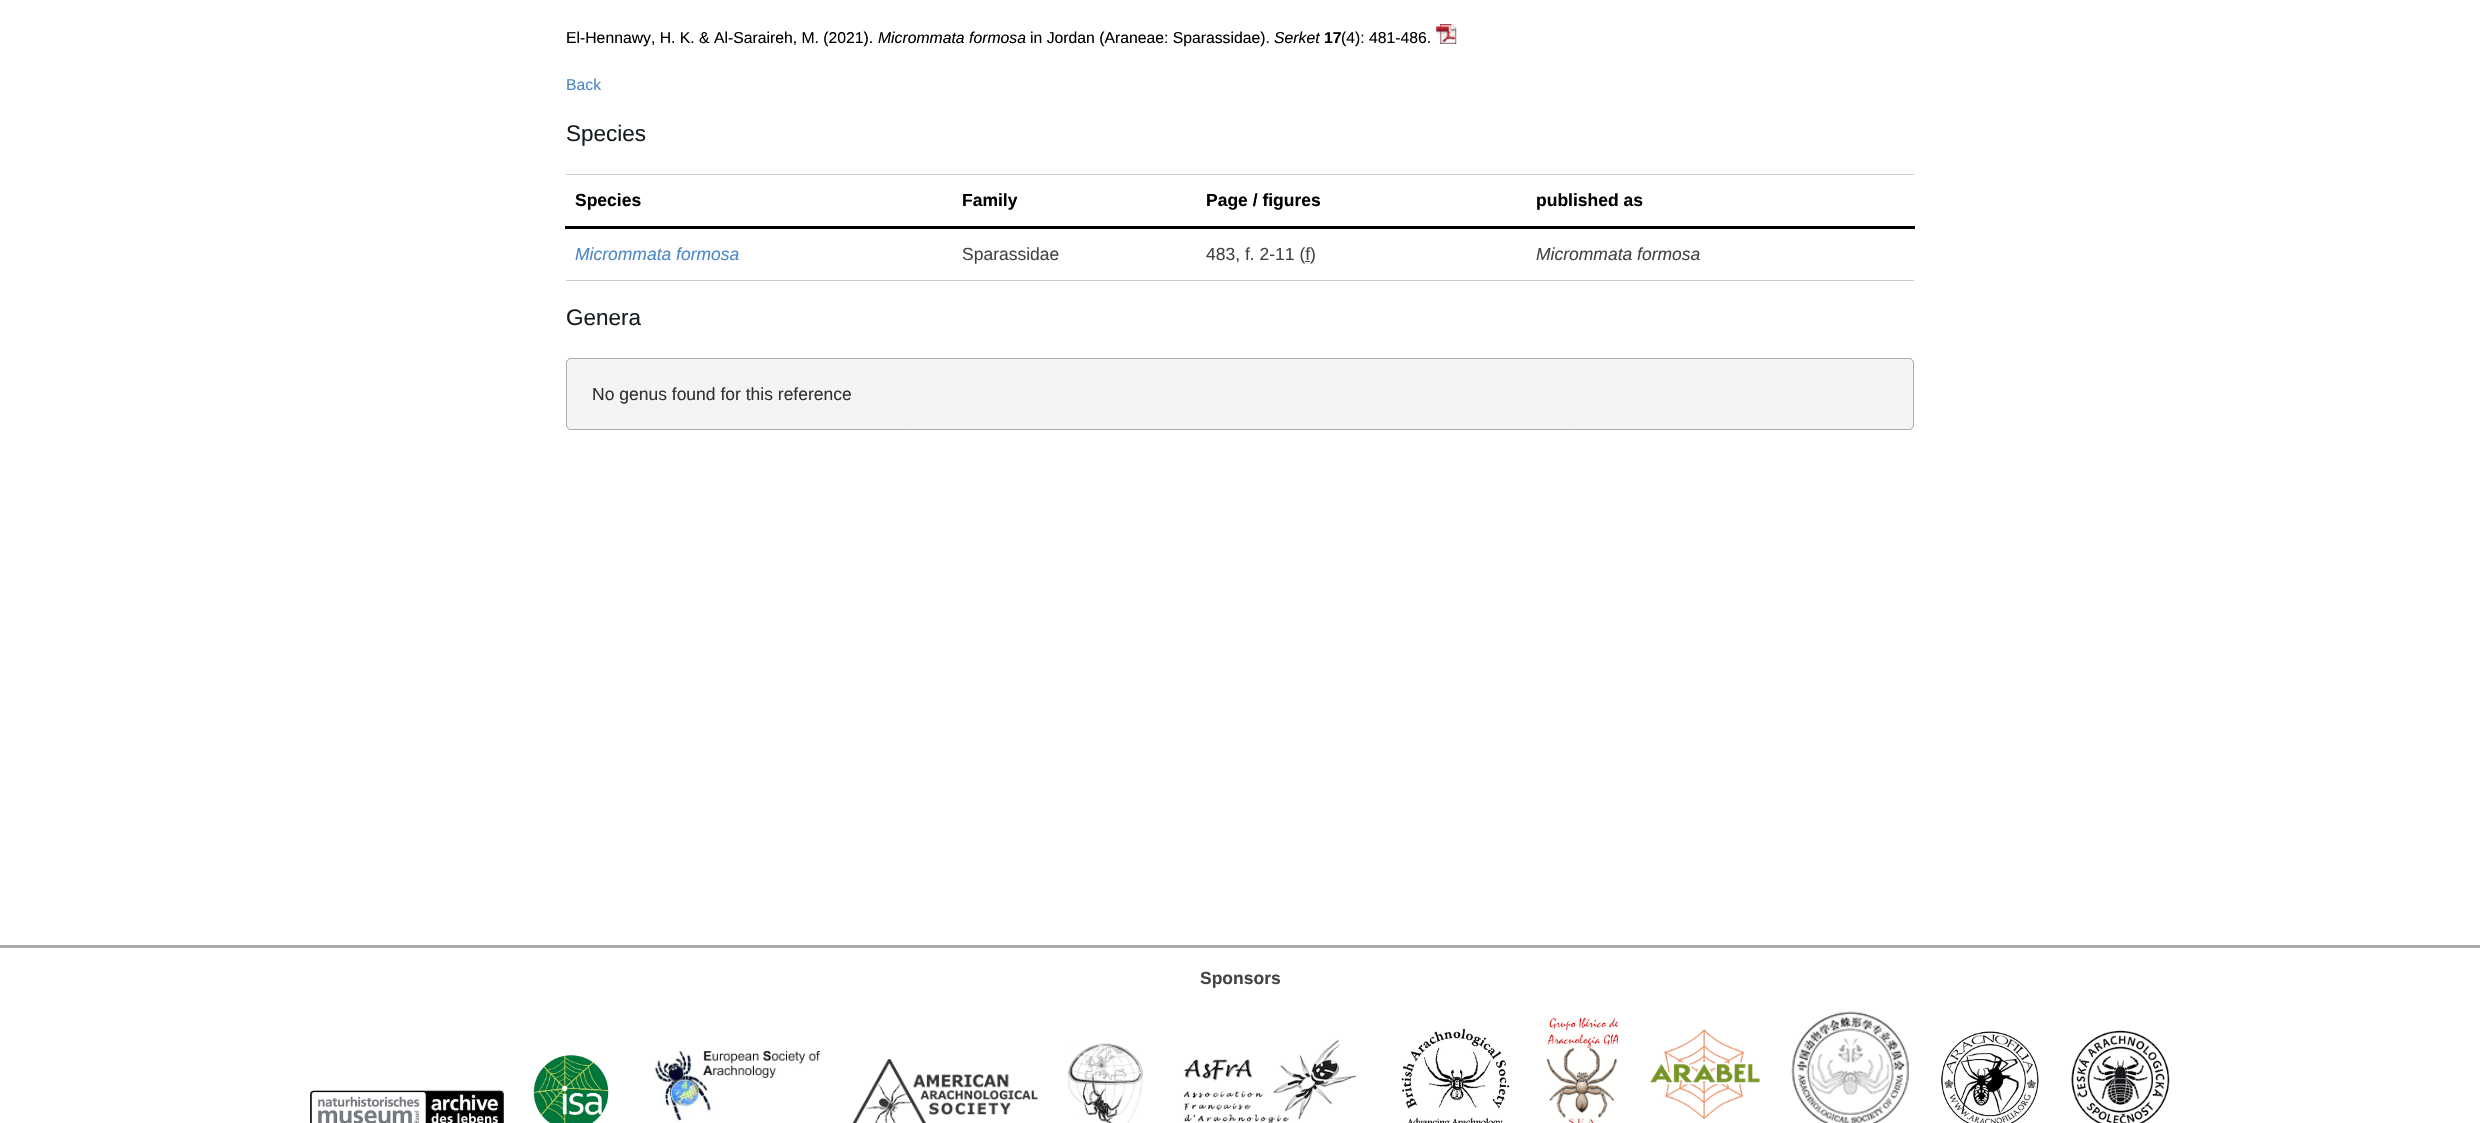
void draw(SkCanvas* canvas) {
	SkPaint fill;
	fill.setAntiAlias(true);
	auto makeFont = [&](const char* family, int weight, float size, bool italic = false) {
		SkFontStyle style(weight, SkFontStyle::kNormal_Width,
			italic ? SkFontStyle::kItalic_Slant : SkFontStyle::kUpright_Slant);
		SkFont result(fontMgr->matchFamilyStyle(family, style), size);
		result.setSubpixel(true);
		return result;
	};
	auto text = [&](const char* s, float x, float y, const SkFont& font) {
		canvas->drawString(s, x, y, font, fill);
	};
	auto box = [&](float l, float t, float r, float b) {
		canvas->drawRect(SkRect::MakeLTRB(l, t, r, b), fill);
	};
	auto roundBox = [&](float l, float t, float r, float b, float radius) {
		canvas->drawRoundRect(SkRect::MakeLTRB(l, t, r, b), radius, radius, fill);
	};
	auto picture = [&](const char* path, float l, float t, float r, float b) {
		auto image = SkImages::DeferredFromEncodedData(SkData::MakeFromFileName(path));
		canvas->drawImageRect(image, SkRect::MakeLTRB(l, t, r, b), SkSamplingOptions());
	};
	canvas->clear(0xFFFFFFFF);
	picture("image0.png", 1436, 24, 1457, 44);
	fill.setColor(0xFFCCCCCC);
	box(566, 174, 1914, 175);
	box(566, 280, 1914, 281);
	fill.setColor(0xFF000000);
	box(565, 226, 1915, 229);
	fill.setColor(0xFF444444);
	box(1305, 261, 1310, 262);
	fill.setColor(0xFFF4F4F4);
	roundBox(566, 358, 1914, 430, 5);
	fill.setStyle(SkPaint::kStroke_Style);
	fill.setStrokeWidth(1);
	fill.setColor(0x4D000000);
	canvas->drawRoundRect(SkRect::MakeLTRB(566.5f, 358.5f, 1913.5f, 429.5f), 4.5f, 4.5f, fill);
	fill.setStyle(SkPaint::kFill_Style);
	fill.setColor(0xFFABABAB);
	box(0, 945, 2480, 948);
	picture("image1.png", 310, 1090, 504, 1123);
	picture("image2.png", 533, 1055, 609, 1123);
	picture("image3.png", 654, 1049, 820, 1121);
	picture("image4.png", 852, 1059, 1038, 1123);
	picture("image5.png", 1067, 1043, 1143, 1123);
	picture("image6.png", 1183, 1039, 1357, 1123);
	picture("image7.png", 1401, 1029, 1510, 1123);
	picture("image8.png", 1546, 1017, 1619, 1123);
	picture("image9.png", 1650, 1029, 1760, 1119);
	picture("image10.png", 1791, 1011, 1909, 1123);
	picture("image11.png", 1941, 1031, 2039, 1123);
	picture("image12.png", 2071, 1030, 2170, 1123);
	auto font1 = makeFont("Liberation Sans", 400, 15.75f);
	fill.setColor(0xFF000000);
	text("El-Hennawy, H. K. & Al-Saraireh, M. (2021).", 566, 43, font1);
	auto font2 = makeFont("Liberation Sans", 400, 15.75f, true);
	text("Micrommata formosa", 878, 43, font2);
	text("in Jordan (Araneae: Sparassidae).", 1030, 43, font1);
	text("Serket", 1274, 43, font2);
	auto font3 = makeFont("Liberation Sans", 700, 15.75f);
	text("17", 1324, 43, font3);
	text("(4): 481-486.", 1341, 43, font1);
	fill.setColor(0xFF4D87C7);
	text("Back", 566, 90, font1);
	auto font4 = makeFont("Liberation Sans", 400, 22.5f);
	fill.setColor(0xFF161E21);
	text("Species", 566, 141, font4);
	auto font5 = makeFont("Liberation Sans", 700, 17.5f);
	fill.setColor(0xFF000000);
	text("Species", 575, 206, font5);
	text("Family", 962, 206, font5);
	text("Page / figures", 1206, 206, font5);
	text("published as", 1536, 206, font5);
	auto font6 = makeFont("Liberation Sans", 400, 17.5f, true);
	fill.setColor(0xFF4D87C7);
	text("Micrommata formosa", 575, 260, font6);
	auto font7 = makeFont("Liberation Sans", 400, 17.5f);
	fill.setColor(0xFF444444);
	text("Sparassidae", 962, 260, font7);
	text("483, f. 2-11 (f)", 1206, 260, font7);
	text("Micrommata formosa", 1536, 260, font6);
	fill.setColor(0xFF161E21);
	text("Genera", 566, 325, font4);
	fill.setColor(0xFF313131);
	text("No genus found for this reference", 592, 400, font7);
	fill.setColor(0xFF444444);
	text("Sponsors", 1200, 984, font5);
}
